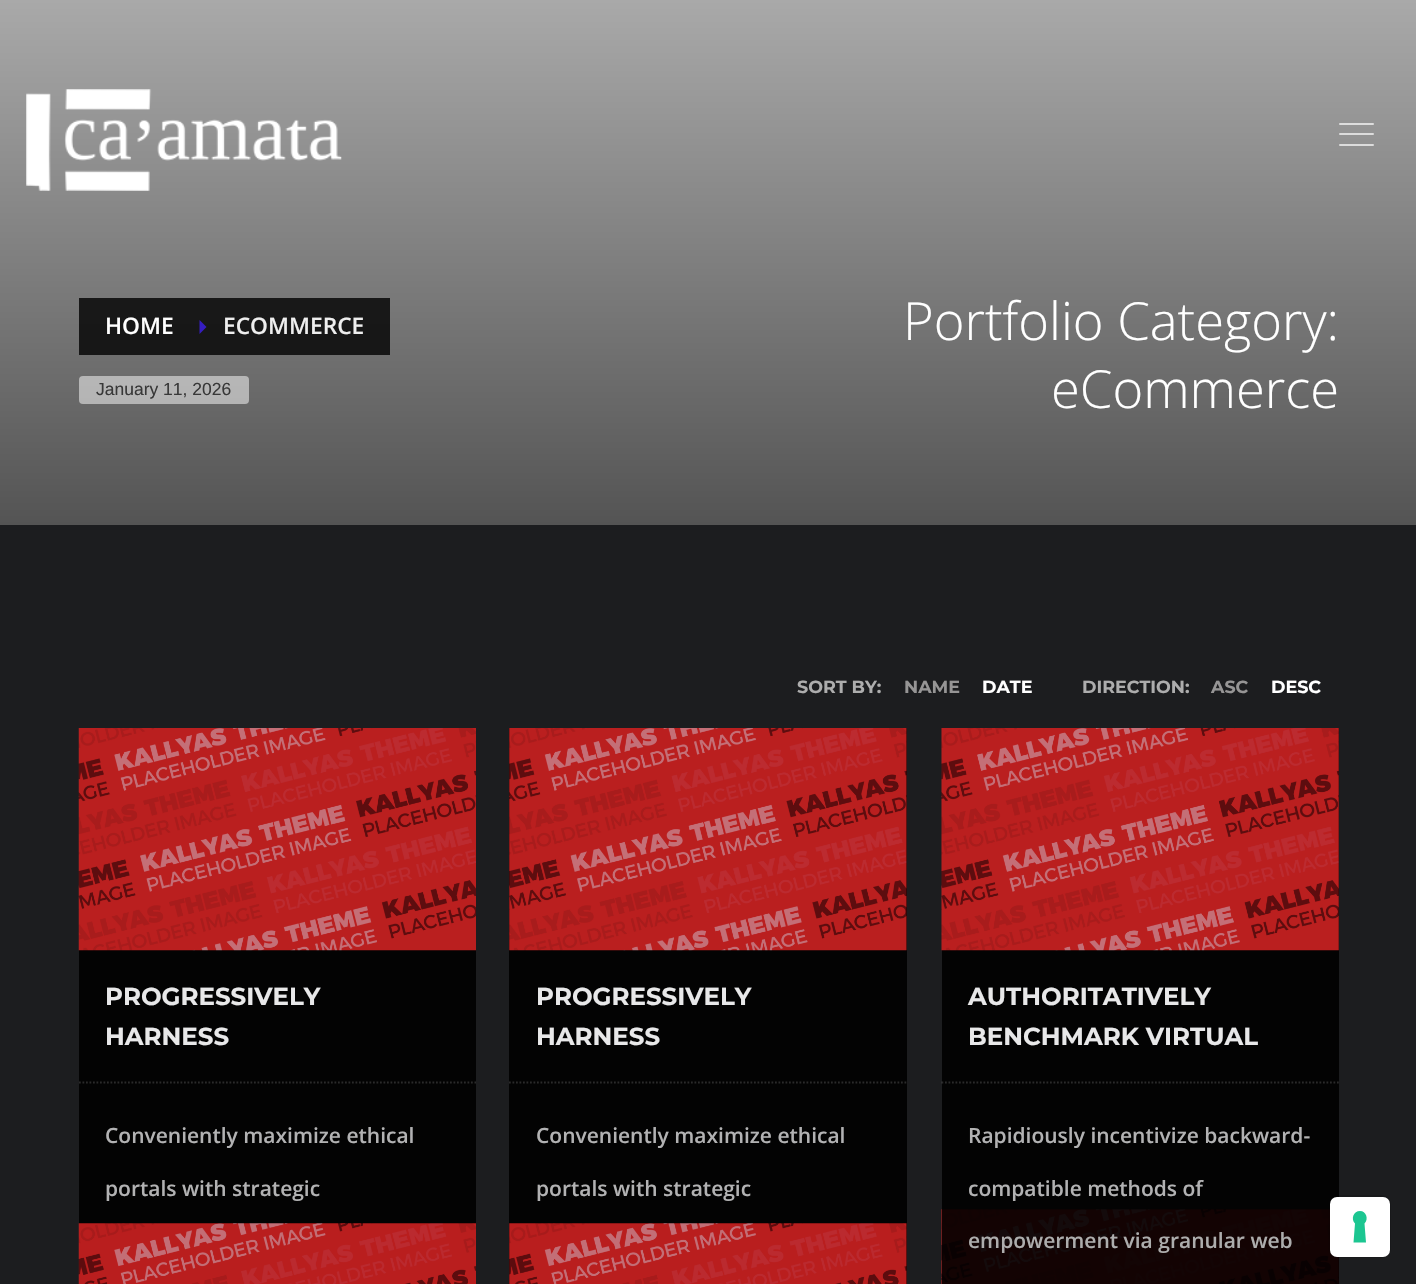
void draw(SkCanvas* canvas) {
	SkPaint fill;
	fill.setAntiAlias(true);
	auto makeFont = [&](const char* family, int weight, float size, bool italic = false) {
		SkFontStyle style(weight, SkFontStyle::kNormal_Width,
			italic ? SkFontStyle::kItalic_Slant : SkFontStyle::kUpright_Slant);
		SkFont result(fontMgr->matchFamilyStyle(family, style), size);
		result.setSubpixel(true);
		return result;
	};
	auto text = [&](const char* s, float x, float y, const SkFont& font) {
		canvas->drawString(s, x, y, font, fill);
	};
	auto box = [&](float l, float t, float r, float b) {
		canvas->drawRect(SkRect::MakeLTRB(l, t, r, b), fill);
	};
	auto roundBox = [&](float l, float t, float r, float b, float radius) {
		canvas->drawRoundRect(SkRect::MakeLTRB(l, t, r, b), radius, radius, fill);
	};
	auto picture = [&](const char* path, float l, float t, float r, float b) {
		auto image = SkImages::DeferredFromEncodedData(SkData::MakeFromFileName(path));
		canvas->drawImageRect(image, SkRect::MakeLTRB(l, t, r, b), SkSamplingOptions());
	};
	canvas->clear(0xFF1C1D1F);
	fill.setColor(0xFF030303);
	box(942, 728, 1339, 1209);
	{
		const SkColor colors[] = {0xFFA9A9A9, 0xFF545454};
		const float stops[] = {0, 1};
		const SkPoint ends[] = {{709, 0}, {709, 525}};
		fill.setShader(SkGradientShader::MakeLinear(ends, colors, stops, 2, SkTileMode::kClamp));
		fill.setAlpha(255);
	}
	box(0, 0, 1416, 525);
	picture("image0.png", 26, 89, 342, 191);
	fill.setShader(nullptr);
	fill.setColor(0xFFDDDDDD);
	roundBox(1339, 123, 1374, 125, 1);
	fill.setColor(0xFFDCDCDC);
	roundBox(1339, 133, 1374, 135, 1);
	roundBox(1339, 144, 1374, 146, 1);
	{
		const SkColor colors[] = {0xFF222222, 0xFF111111};
		const float stops[] = {0, 1};
		const SkPoint ends[] = {{709, 0}, {709, 525}};
		fill.setShader(SkGradientShader::MakeLinear(ends, colors, stops, 2, SkTileMode::kClamp));
		fill.setAlpha(255);
	}
	box(182, 298, 390, 355);
	box(79, 298, 182, 355);
	fill.setShader(nullptr);
	fill.setColor(0xFF351DC1);
	canvas->drawPath(SkPathBuilder().moveTo(199.5f, 334).lineTo(199.5f, 320).lineTo(206.5f, 327).close().detach(), fill);
	fill.setColor(0x80FFFFFF);
	roundBox(79, 376, 249, 404, 4);
	fill.setColor(0xFF030303);
	box(79, 728, 476, 1223);
	fill.setColor(0xFF000000);
	box(79, 1223, 476, 1284);
	picture("image1.png", 78, 728, 476, 951);
	fill.setStyle(SkPaint::kStroke_Style);
	fill.setStrokeWidth(1.8f);
	fill.setColor(0xFF2A2A2A);
	fill.setPathEffect(SkDashPathEffect::Make({{1.75f, 1.75f}}, 0));
	canvas->drawPath(SkPathBuilder().moveTo(79, 1082.5f).lineTo(476, 1082.5f).detach(), fill);
	fill.setPathEffect(nullptr);
	fill.setStyle(SkPaint::kFill_Style);
	fill.setColor(0xFF030303);
	box(509, 728, 907, 1223);
	fill.setColor(0xFF000000);
	box(509, 1223, 907, 1284);
	picture("image2.png", 509, 728, 907, 951);
	fill.setStyle(SkPaint::kStroke_Style);
	fill.setColor(0xFF2A2A2A);
	fill.setPathEffect(SkDashPathEffect::Make({{1.75f, 1.75f}}, 0));
	canvas->drawPath(SkPathBuilder().moveTo(509, 1082.5f).lineTo(906.5f, 1082.5f).detach(), fill);
	fill.setPathEffect(nullptr);
	picture("image3.png", 941, 728, 1339, 951);
	fill.setColor(0x2BE8E8E9);
	fill.setPathEffect(SkDashPathEffect::Make({{1.75f, 1.75f}}, 0));
	canvas->drawPath(SkPathBuilder().moveTo(941.5f, 1082.5f).lineTo(1339, 1082.5f).detach(), fill);
	fill.setPathEffect(nullptr);
	picture("image4.png", 78, 1223, 476, 1284);
	picture("image5.png", 509, 1223, 907, 1284);
	fill.setStyle(SkPaint::kFill_Style);
	fill.setColor(0xFF000000);
	box(942, 1209, 1339, 1284);
	picture("image6.png", 941, 1209, 1339, 1284);
	fill.setStyle(SkPaint::kStroke_Style);
	fill.setStrokeWidth(2);
	fill.setColor(0x26000000);
	canvas->drawRoundRect(SkRect::MakeLTRB(1329, 1196, 1390, 1257), 8, 8, fill);
	fill.setStyle(SkPaint::kFill_Style);
	fill.setColor(0xFFFFFFFF);
	roundBox(1330, 1197, 1390, 1257, 7);
	fill.setColor(0xFF1CC691);
	canvas->drawPath(SkPathBuilder(SkPathFillType::kEvenOdd).moveTo(1360, 1211).cubicTo(1366, 1211, 1369, 1219, 1364.5f, 1223.5f).lineTo(1366, 1242.5f).lineTo(1353.5f, 1242.5f).lineTo(1355, 1223.5f).cubicTo(1350.5f, 1219, 1353.5f, 1211, 1360, 1211).close().detach(), fill);
	auto font1 = makeFont("Open Sans", 600, 22.75f);
	fill.setColor(0xFFFFFFFF);
	text("HOME", 105, 334, font1);
	fill.setColor(0xFFEEEEEE);
	text("ECOMMERCE", 223, 334, font1);
	auto font2 = makeFont("Liberation Sans", 400, 17.5f);
	fill.setColor(0xFF383838);
	text("January 11, 2026", 96, 395, font2);
	auto font3 = makeFont("Open Sans", 300, 52.5f);
	fill.setColor(0xFFFFFFFF);
	text("Portfolio Category:", 903, 340, font3);
	text("eCommerce", 1051, 408, font3);
	auto font4 = makeFont("Montserrat", 700, 17.5f);
	fill.setColor(0xFFADADAD);
	text("SORT BY:", 797, 693, font4);
	fill.setColor(0xFF969595);
	text("NAME", 904, 693, font4);
	fill.setColor(0xFFFFFFFF);
	text("DATE", 982, 693, font4);
	fill.setColor(0xFFADADAD);
	text("DIRECTION:", 1082, 693, font4);
	fill.setColor(0xFF969595);
	text("ASC", 1211, 693, font4);
	fill.setColor(0xFFFFFFFF);
	text("DESC", 1271, 693, font4);
	auto font5 = makeFont("Montserrat", 700, 24.5f);
	fill.setColor(0xFFE8E8E9);
	text("PROGRESSIVELY", 105, 1005, font5);
	text("HARNESS", 105, 1045, font5);
	auto font6 = makeFont("Open Sans", 600, 21);
	fill.setColor(0xFFB2B2B3);
	text("Conveniently maximize ethical", 105, 1143, font6);
	text("portals with strategic", 105, 1196, font6);
	fill.setColor(0xFFE8E8E9);
	text("PROGRESSIVELY", 536, 1005, font5);
	text("HARNESS", 536, 1045, font5);
	fill.setColor(0xFFB2B2B3);
	text("Conveniently maximize ethical", 536, 1143, font6);
	text("portals with strategic", 536, 1196, font6);
	fill.setColor(0xFFE8E8E9);
	text("AUTHORITATIVELY", 968, 1005, font5);
	text("BENCHMARK VIRTUAL", 968, 1045, font5);
	fill.setColor(0xFFB2B2B3);
	text("Rapidiously incentivize backward-", 968, 1143, font6);
	text("compatible methods of", 968, 1196, font6);
	fill.setColor(0xFFADADAD);
	text("empowerment via granular web", 968, 1248, font6);
}
